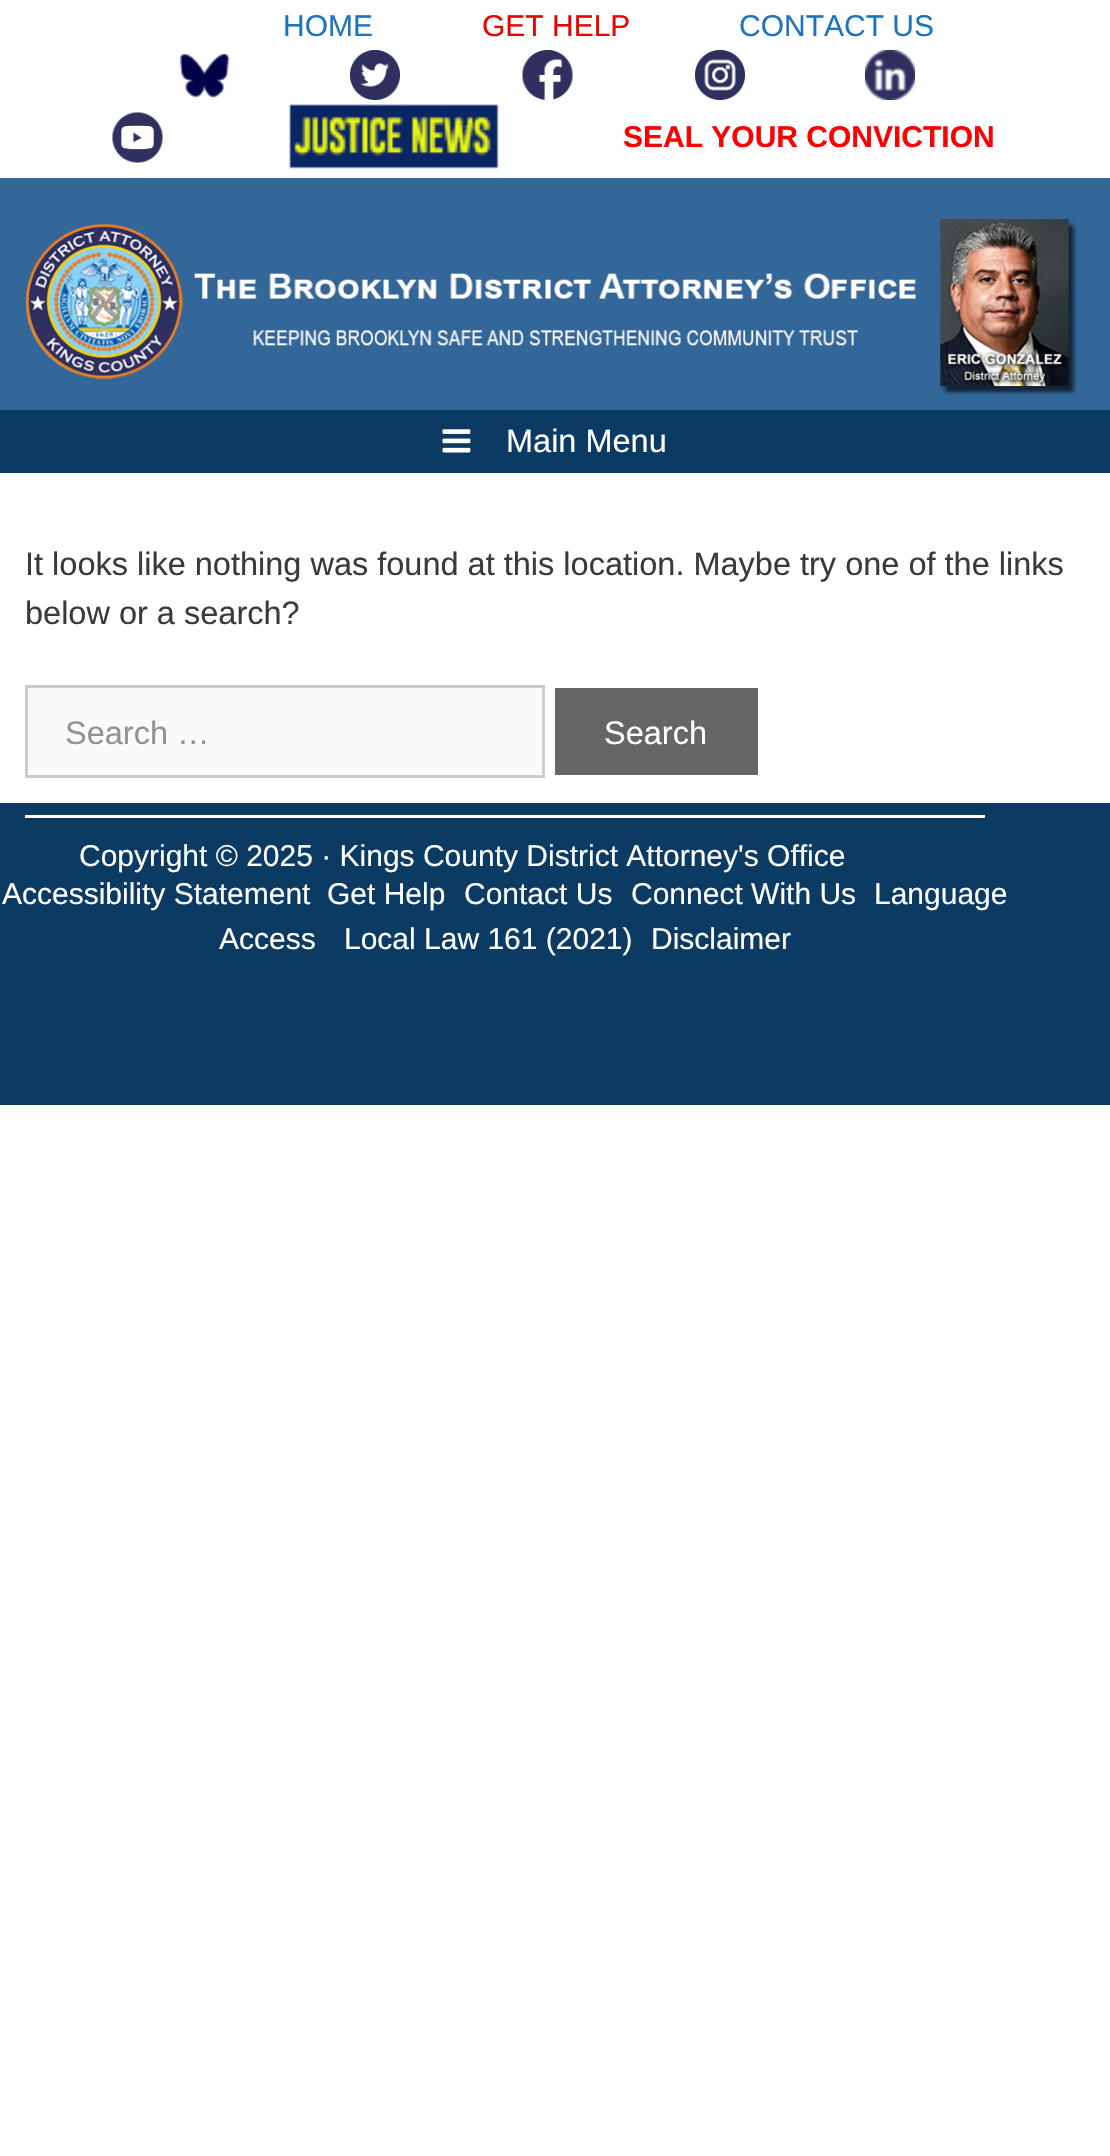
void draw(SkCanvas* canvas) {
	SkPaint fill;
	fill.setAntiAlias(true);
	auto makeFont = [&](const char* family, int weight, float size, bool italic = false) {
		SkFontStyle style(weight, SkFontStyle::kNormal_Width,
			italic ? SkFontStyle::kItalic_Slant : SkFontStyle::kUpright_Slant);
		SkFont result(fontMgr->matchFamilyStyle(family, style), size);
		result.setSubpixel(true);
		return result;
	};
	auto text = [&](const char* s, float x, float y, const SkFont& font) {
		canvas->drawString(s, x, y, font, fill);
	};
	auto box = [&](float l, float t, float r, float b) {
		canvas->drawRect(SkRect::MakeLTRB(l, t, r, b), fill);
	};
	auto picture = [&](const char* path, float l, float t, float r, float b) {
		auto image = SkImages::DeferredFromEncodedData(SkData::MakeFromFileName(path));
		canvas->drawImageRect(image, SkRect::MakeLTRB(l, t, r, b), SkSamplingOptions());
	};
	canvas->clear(0xFFFFFFFF);
	picture("image0.png", 180, 53, 229, 98);
	picture("image1.png", 350, 50, 400, 100);
	picture("image2.png", 522, 50, 573, 100);
	picture("image3.png", 695, 50, 745, 100);
	picture("image4.png", 865, 50, 915, 100);
	picture("image5.png", 112, 112, 163, 163);
	picture("image6.png", 289, 104, 499, 169);
	fill.setColor(0xFF336699);
	box(0, 178, 1110, 410);
	picture("image7.png", 26, 219, 1077, 395);
	fill.setColor(0xFF0B3A62);
	box(0, 410, 1110, 473);
	picture("image8.png", 442, 429, 471, 453);
	fill.setColor(0xFFFAFAFA);
	canvas->drawRect(SkRect::MakeLTRB(26.5f, 686.5f, 543.5f, 776.5f), fill);
	fill.setStyle(SkPaint::kStroke_Style);
	fill.setStrokeWidth(3);
	fill.setColor(0xFFCCCCCC);
	canvas->drawRect(SkRect::MakeLTRB(26.5f, 686.5f, 543.5f, 776.5f), fill);
	fill.setStyle(SkPaint::kFill_Style);
	fill.setColor(0xFF666666);
	box(555, 688, 758, 775);
	fill.setColor(0xFF0B3A62);
	box(0, 803, 1110, 1105);
	fill.setColor(0xFF0A3458);
	box(25, 818, 985, 820);
	fill.setColor(0xFFFFFFFF);
	box(25, 815, 985, 818);
	auto font1 = makeFont("Liberation Sans", 400, 30);
	fill.setColor(0xFF1E73BE);
	text("HOME", 283, 36, font1);
	fill.setColor(0xFFEA0000);
	text("GET HELP", 482, 36, font1);
	fill.setColor(0xFF1E73BE);
	text("CONTACT US", 739, 36, font1);
	auto font2 = makeFont("Liberation Sans", 700, 30);
	fill.setColor(0xFFFF0000);
	text("SEAL YOUR CONVICTION", 623, 147, font2);
	auto font3 = makeFont("Liberation Sans", 400, 32.5f);
	fill.setColor(0xFFFFFFFF);
	text("Main Menu", 506, 452, font3);
	fill.setColor(0xFF3A3A3A);
	text("It looks like nothing was found at this location. Maybe try one of the links", 25, 575, font3);
	text("below or a search?", 25, 624, font3);
	fill.setColor(0xFF929292);
	text("Search …", 65, 744, font3);
	fill.setColor(0xFFFFFFFF);
	text("Search", 604, 744, font3);
	text("Copyright © 2025 · Kings County District Attorney's Office", 79, 866, font1);
	text("Accessibility Statement", 2, 904, font1);
	text("Get Help", 327, 904, font1);
	text("Contact Us", 464, 904, font1);
	text("Connect With Us", 631, 904, font1);
	text("Language", 874, 904, font1);
	text("Access", 219, 949, font1);
	text("Local Law 161 (2021)", 344, 949, font1);
	text("Disclaimer", 651, 949, font1);
}
